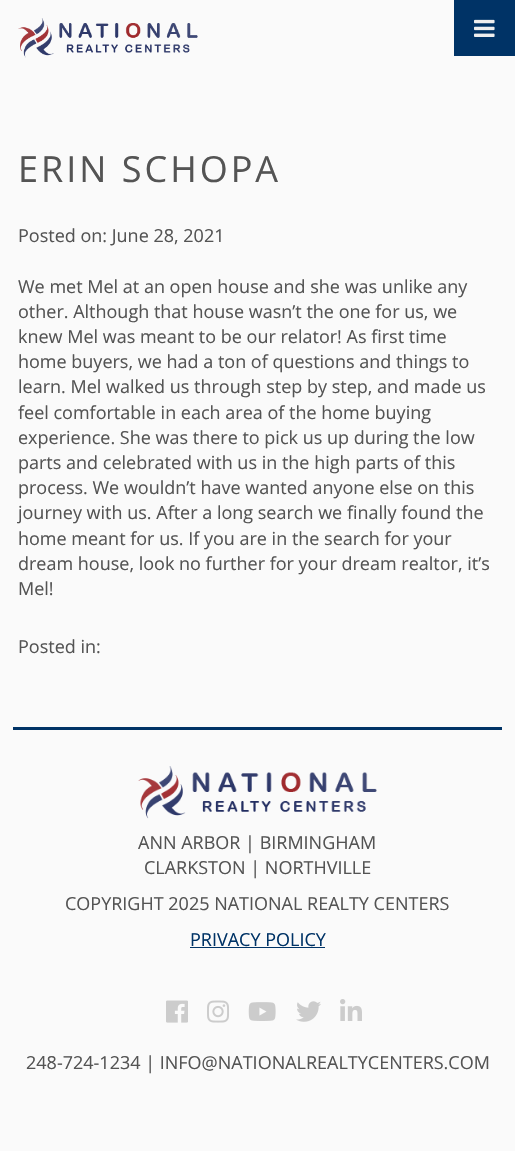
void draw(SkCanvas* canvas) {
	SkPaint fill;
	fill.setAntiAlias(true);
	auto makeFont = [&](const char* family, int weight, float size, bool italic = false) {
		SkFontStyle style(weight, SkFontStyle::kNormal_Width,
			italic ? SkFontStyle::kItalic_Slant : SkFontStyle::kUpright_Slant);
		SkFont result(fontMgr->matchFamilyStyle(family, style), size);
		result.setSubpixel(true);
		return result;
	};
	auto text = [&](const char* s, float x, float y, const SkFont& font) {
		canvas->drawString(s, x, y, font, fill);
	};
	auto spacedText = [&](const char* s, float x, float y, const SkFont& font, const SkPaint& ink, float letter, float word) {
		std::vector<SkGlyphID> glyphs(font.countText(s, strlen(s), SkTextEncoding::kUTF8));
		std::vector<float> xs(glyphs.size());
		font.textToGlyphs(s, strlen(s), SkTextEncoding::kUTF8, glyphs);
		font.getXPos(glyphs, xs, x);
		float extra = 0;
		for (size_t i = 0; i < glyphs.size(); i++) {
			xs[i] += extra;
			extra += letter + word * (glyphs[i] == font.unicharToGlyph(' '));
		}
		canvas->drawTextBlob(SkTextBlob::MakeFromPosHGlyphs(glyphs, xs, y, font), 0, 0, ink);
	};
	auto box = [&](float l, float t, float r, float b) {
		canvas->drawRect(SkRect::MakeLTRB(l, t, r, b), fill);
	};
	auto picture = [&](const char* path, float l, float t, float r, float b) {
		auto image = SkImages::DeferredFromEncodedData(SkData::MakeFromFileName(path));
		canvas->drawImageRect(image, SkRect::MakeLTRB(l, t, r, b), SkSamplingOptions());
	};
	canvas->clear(0xFFFAFAFA);
	fill.setColor(0xFF003366);
	box(454, 0, 515, 56);
	picture("image0.png", 474, 19, 495, 37);
	picture("image1.png", 18, 18, 198, 58);
	box(13, 727, 502, 730);
	picture("image2.png", 138, 766, 377, 819);
	box(190, 947, 325, 948);
	picture("image3.png", 166, 1000, 188, 1023);
	picture("image4.png", 207, 1000, 229, 1023);
	picture("image5.png", 248, 1002, 276, 1021);
	picture("image6.png", 296, 1001, 321, 1022);
	picture("image7.png", 340, 999, 362, 1021);
	auto font1 = makeFont("Open Sans", 400, 36);
	fill.setColor(0xFF545454);
	spacedText("ERIN SCHOPA", 18, 182, font1, fill, 3, 0);
	auto font2 = makeFont("Open Sans", 400, 18);
	text("Posted on: June 28, 2021", 18, 242, font2);
	text("We met Mel at an open house and she was unlike any", 18, 293, font2);
	text("other. Although that house wasn’t the one for us, we", 18, 318, font2);
	text("knew Mel was meant to be our relator! As first time", 18, 343, font2);
	text("home buyers, we had a ton of questions and things to", 18, 368, font2);
	text("learn. Mel walked us through step by step, and made us", 18, 393, font2);
	text("feel comfortable in each area of the home buying", 18, 419, font2);
	text("experience. She was there to pick us up during the low", 18, 444, font2);
	text("parts and celebrated with us in the high parts of this", 18, 469, font2);
	text("process. We wouldn’t have wanted anyone else on this", 18, 494, font2);
	text("journey with us. After a long search we finally found the", 18, 519, font2);
	text("home meant for us. If you are in the search for your", 18, 545, font2);
	text("dream house, look no further for your dream realtor, it’s", 18, 570, font2);
	text("Mel!", 18, 595, font2);
	text("Posted in:", 18, 653, font2);
	text("ANN ARBOR | BIRMINGHAM", 138, 849, font2);
	text("CLARKSTON | NORTHVILLE", 144, 874, font2);
	text("COPYRIGHT 2025 NATIONAL REALTY CENTERS", 65, 910, font2);
	fill.setColor(0xFF003366);
	text("PRIVACY POLICY", 190, 946, font2);
	fill.setColor(0xFF545454);
	text("248-724-1234 | INFO@NATIONALREALTYCENTERS.COM", 26, 1069, font2);
}
